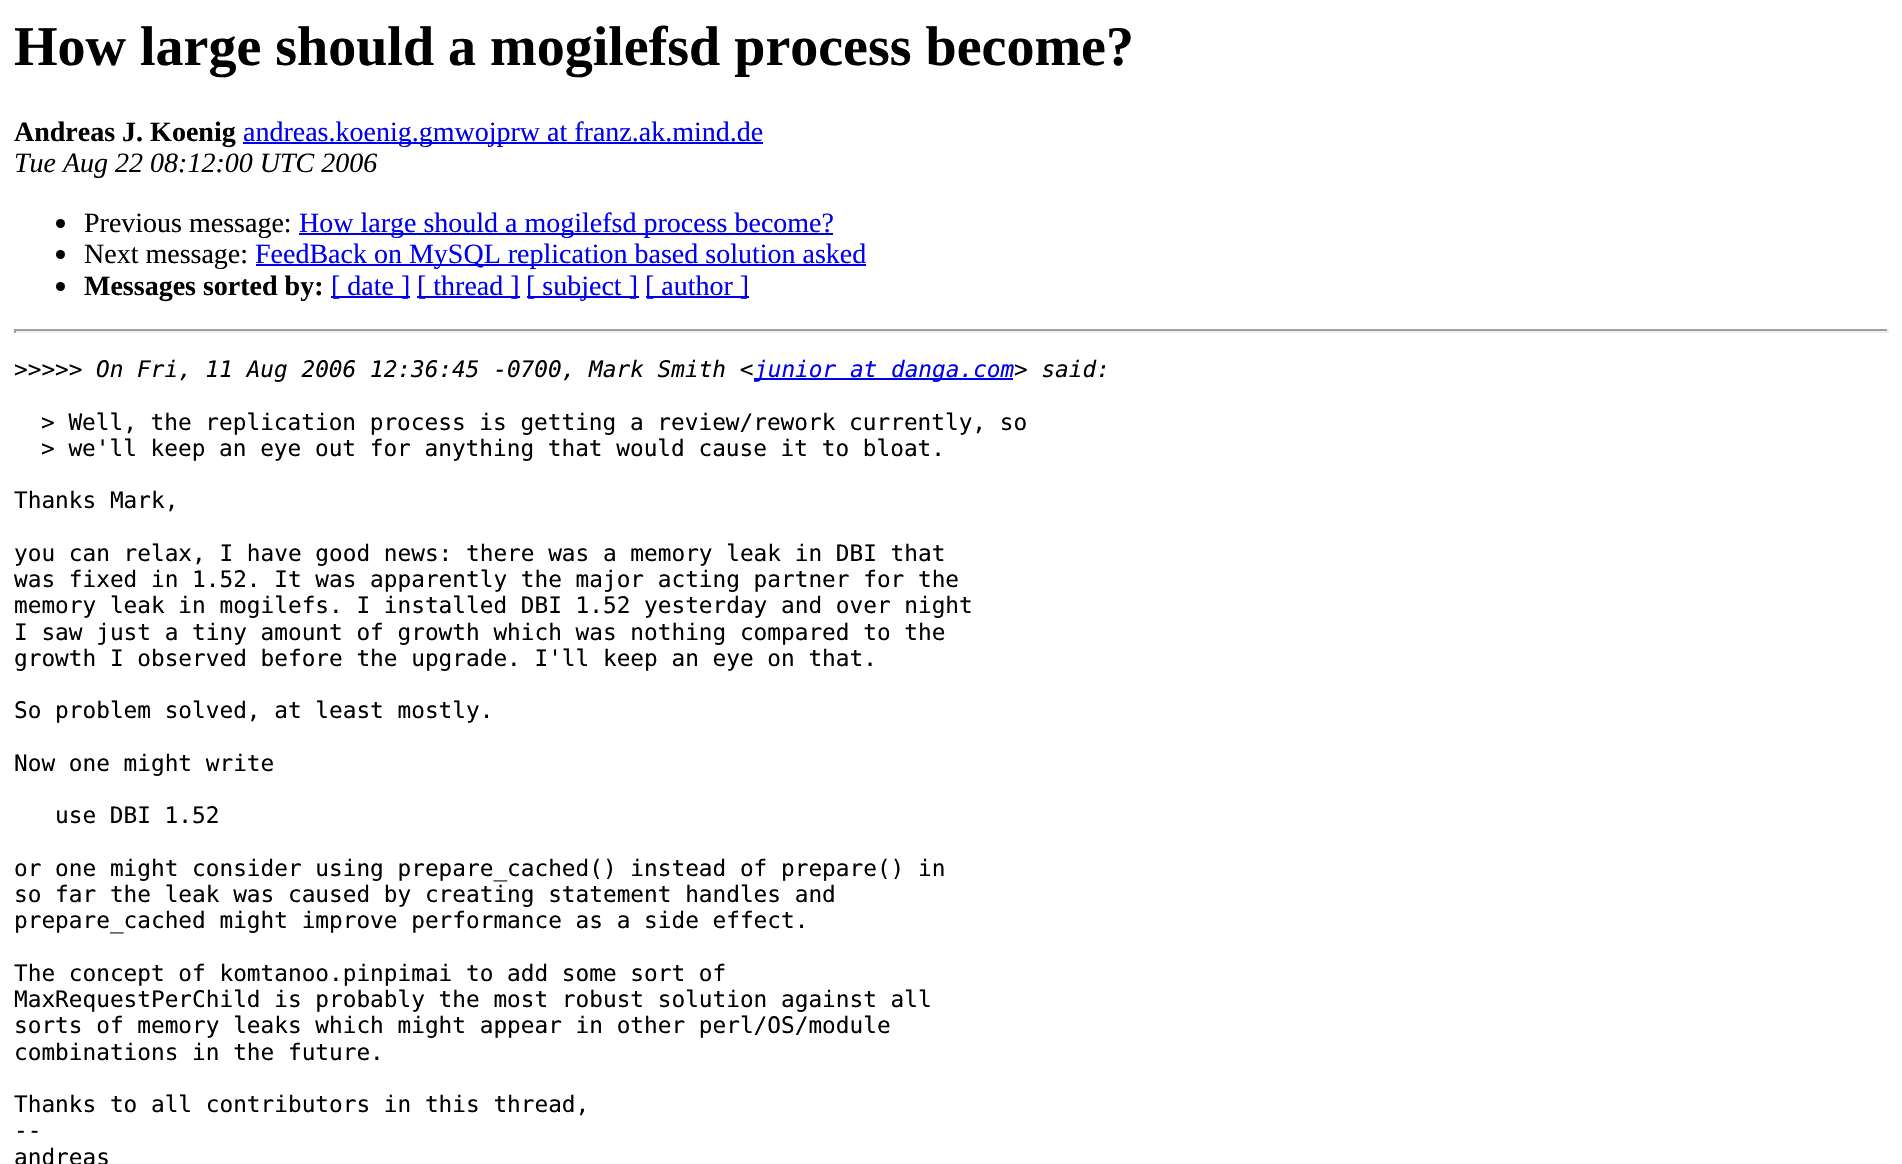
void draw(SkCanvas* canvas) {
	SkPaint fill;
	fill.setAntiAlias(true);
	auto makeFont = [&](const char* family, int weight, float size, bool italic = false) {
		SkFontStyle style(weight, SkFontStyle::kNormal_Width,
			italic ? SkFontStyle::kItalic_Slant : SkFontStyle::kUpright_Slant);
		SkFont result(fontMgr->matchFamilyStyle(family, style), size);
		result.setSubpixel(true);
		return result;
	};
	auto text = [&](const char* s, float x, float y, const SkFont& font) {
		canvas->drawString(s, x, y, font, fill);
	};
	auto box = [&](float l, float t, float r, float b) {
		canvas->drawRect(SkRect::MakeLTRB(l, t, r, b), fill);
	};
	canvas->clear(0xFFFFFFFF);
	fill.setColor(0xFF0000EE);
	box(243, 142, 763, 144);
	fill.setColor(0xFF000000);
	canvas->drawCircle(60.5f, 223.5f, 4.5f, fill);
	fill.setColor(0xFF0000EE);
	box(299, 233, 833, 235);
	fill.setColor(0xFF000000);
	canvas->drawCircle(60.5f, 254.5f, 4.5f, fill);
	fill.setColor(0xFF0000EE);
	box(256, 264, 866, 266);
	fill.setColor(0xFF000000);
	canvas->drawCircle(60.5f, 286.5f, 4.5f, fill);
	fill.setColor(0xFF0000EE);
	box(331, 296, 410, 298);
	box(417, 296, 520, 298);
	box(527, 296, 639, 298);
	box(646, 296, 749, 298);
	fill.setColor(0xFF9F9F9F);
	box(14, 329, 1888, 331);
	fill.setColor(0xFFEEEEEE);
	box(1887, 329, 1889, 333);
	box(14, 331, 1888, 333);
	fill.setColor(0xFF9F9F9F);
	box(14, 329, 16, 333);
	fill.setColor(0xFF0000EE);
	box(754, 378, 1013, 380);
	auto font1 = makeFont("Liberation Serif", 700, 56);
	fill.setColor(0xFF000000);
	text("How large should a mogilefsd process become?", 14, 65, font1);
	auto font2 = makeFont("Liberation Serif", 700, 28);
	text("Andreas J. Koenig", 14, 141, font2);
	auto font3 = makeFont("Liberation Serif", 400, 28);
	fill.setColor(0xFF0000EE);
	text("andreas.koenig.gmwojprw at franz.ak.mind.de", 243, 141, font3);
	auto font4 = makeFont("Liberation Serif", 400, 28, true);
	fill.setColor(0xFF000000);
	text("Tue Aug 22 08:12:00 UTC 2006", 14, 172, font4);
	text("Previous message:", 84, 232, font3);
	fill.setColor(0xFF0000EE);
	text("How large should a mogilefsd process become?", 299, 232, font3);
	fill.setColor(0xFF000000);
	text("Next message:", 84, 263, font3);
	fill.setColor(0xFF0000EE);
	text("FeedBack on MySQL replication based solution asked", 255, 263, font3);
	fill.setColor(0xFF000000);
	text("Messages sorted by:", 84, 295, font2);
	fill.setColor(0xFF0000EE);
	text("[ date ]", 331, 295, font3);
	text("[ thread ]", 417, 295, font3);
	text("[ subject ]", 526, 295, font3);
	text("[ author ]", 645, 295, font3);
	auto font5 = makeFont("DejaVu Sans Mono", 400, 22.75f);
	fill.setColor(0xFF000000);
	text(">>>>>", 14, 377, font5);
	auto font6 = makeFont("DejaVu Sans Mono", 400, 22.75f, true);
	text("On Fri, 11 Aug 2006 12:36:45 -0700, Mark Smith <", 96, 377, font6);
	fill.setColor(0xFF0000EE);
	text("junior at danga.com", 754, 377, font6);
	fill.setColor(0xFF000000);
	text("> said:", 1014, 377, font6);
	text("> Well, the replication process is getting a review/rework currently, so", 41, 430, font5);
	text("> we'll keep an eye out for anything that would cause it to bloat.", 41, 456, font5);
	text("Thanks Mark,", 14, 508, font5);
	text("you can relax, I have good news: there was a memory leak in DBI that", 14, 561, font5);
	text("was fixed in 1.52. It was apparently the major acting partner for the", 14, 587, font5);
	text("memory leak in mogilefs. I installed DBI 1.52 yesterday and over night", 14, 613, font5);
	text("I saw just a tiny amount of growth which was nothing compared to the", 14, 640, font5);
	text("growth I observed before the upgrade. I'll keep an eye on that.", 14, 666, font5);
	text("So problem solved, at least mostly.", 14, 718, font5);
	text("Now one might write", 14, 771, font5);
	text("use DBI 1.52", 55, 823, font5);
	text("or one might consider using prepare_cached() instead of prepare() in", 14, 876, font5);
	text("so far the leak was caused by creating statement handles and", 14, 902, font5);
	text("prepare_cached might improve performance as a side effect.", 14, 928, font5);
	text("The concept of komtanoo.pinpimai to add some sort of", 14, 981, font5);
	text("MaxRequestPerChild is probably the most robust solution against all", 14, 1007, font5);
	text("sorts of memory leaks which might appear in other perl/OS/module", 14, 1033, font5);
	text("combinations in the future.", 14, 1060, font5);
	text("Thanks to all contributors in this thread,", 14, 1112, font5);
	text("--", 14, 1138, font5);
	text("andreas", 14, 1165, font5);
}
